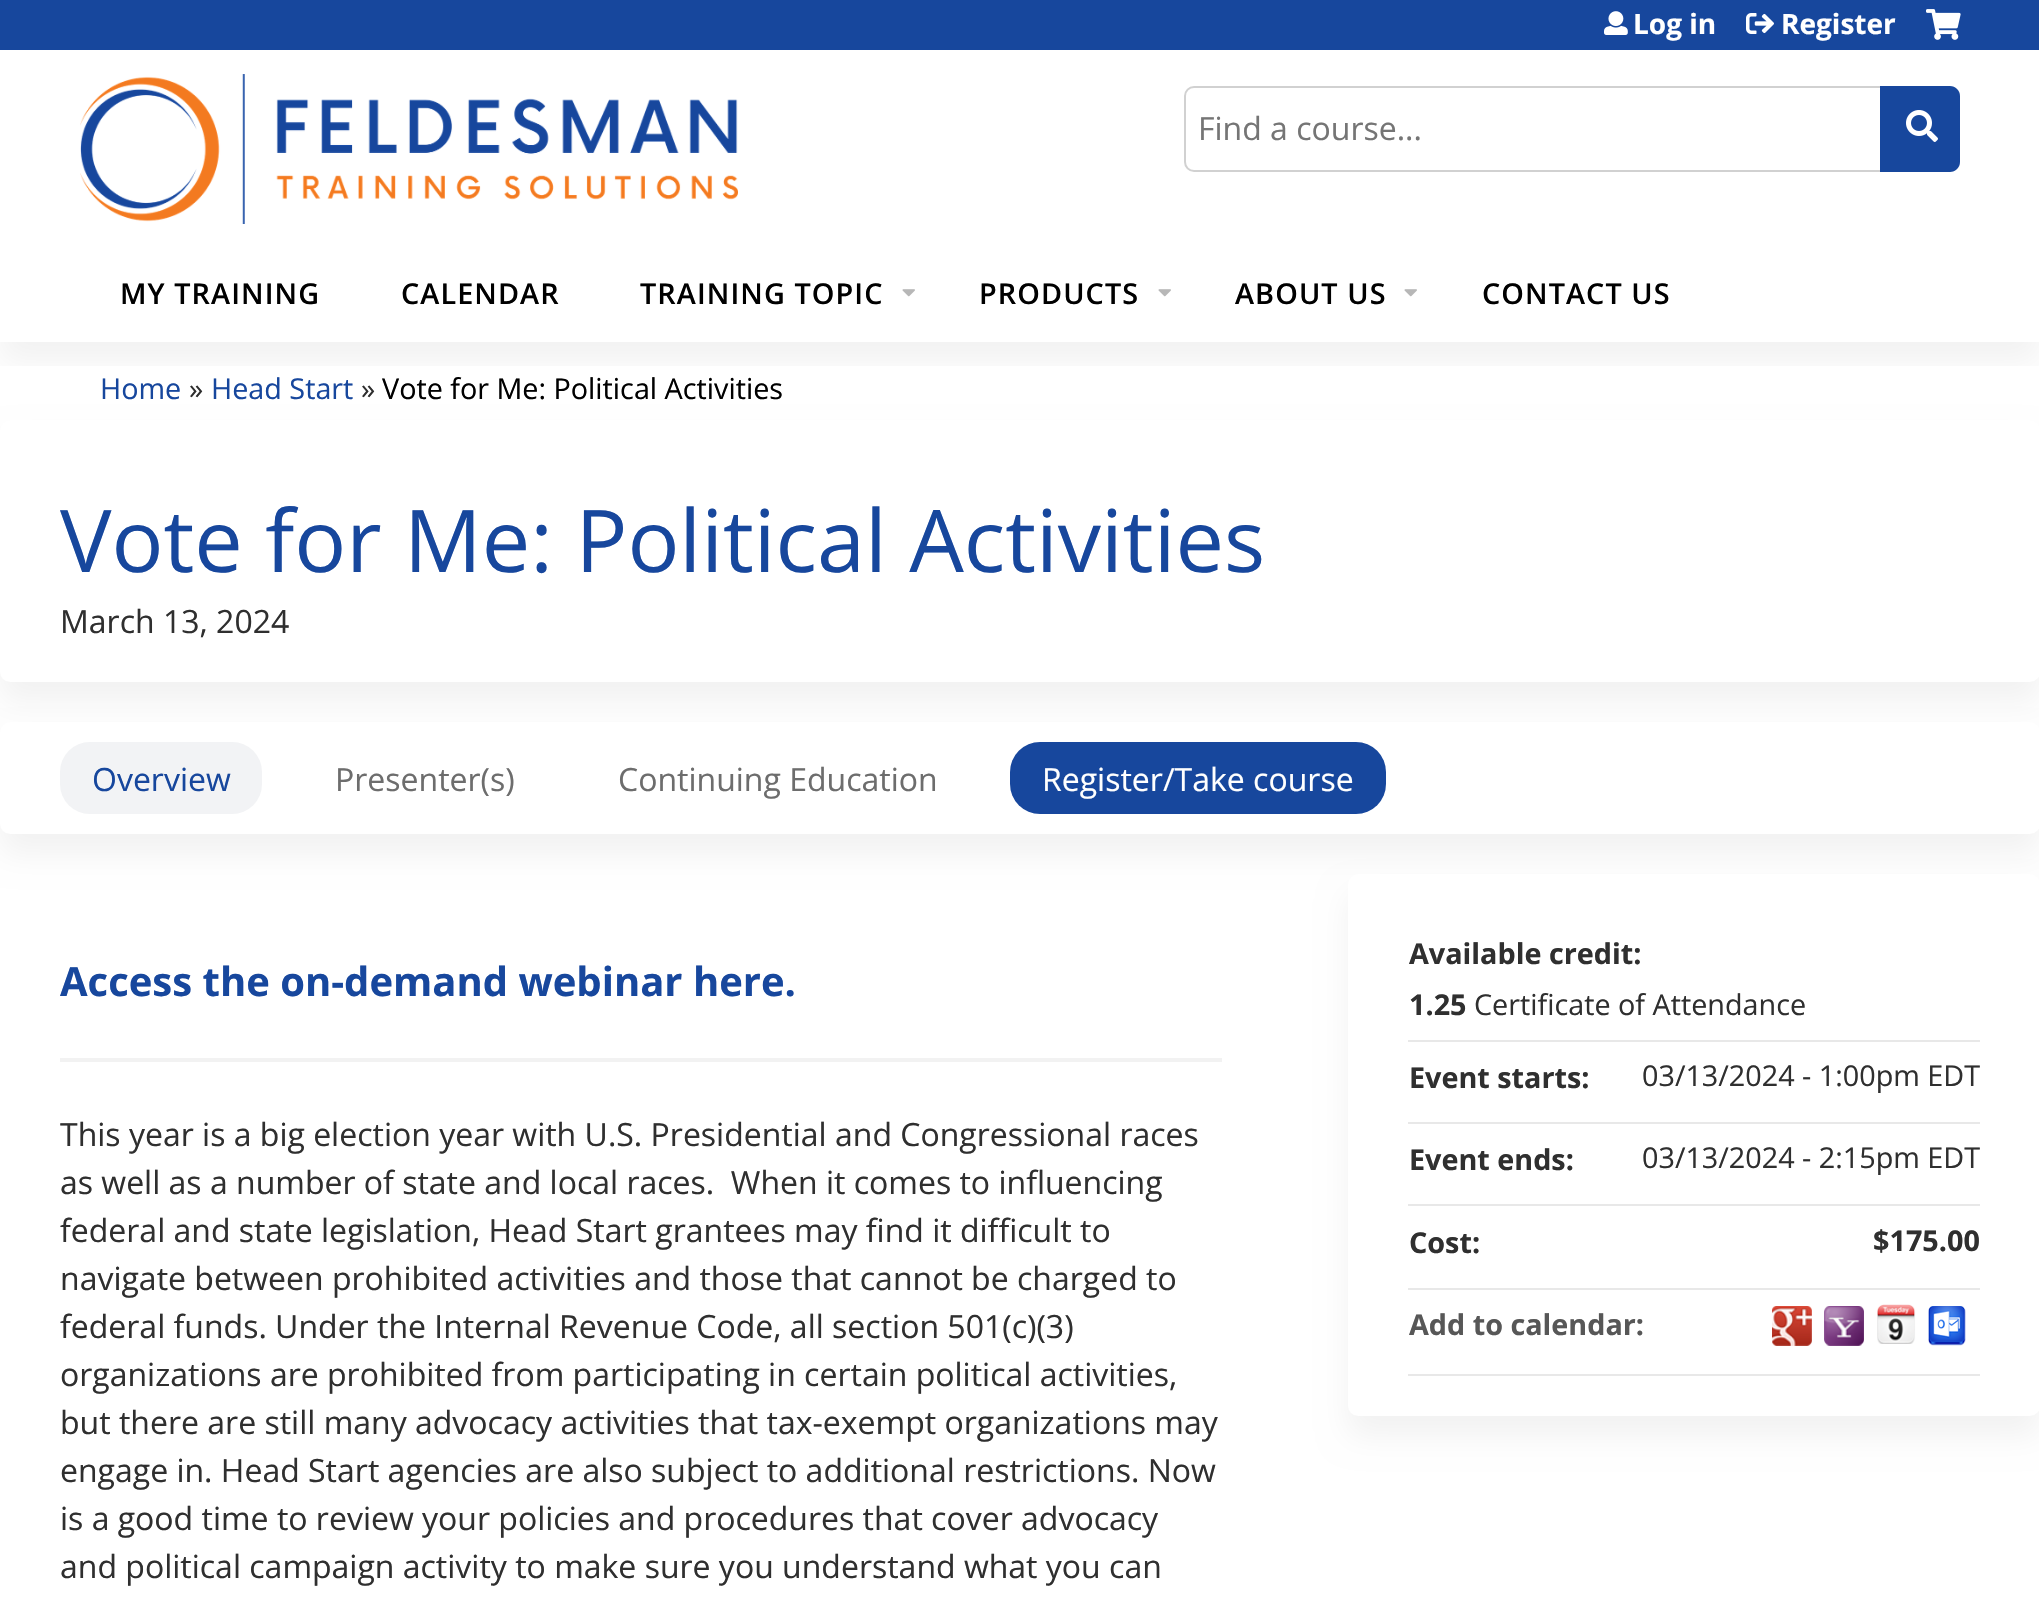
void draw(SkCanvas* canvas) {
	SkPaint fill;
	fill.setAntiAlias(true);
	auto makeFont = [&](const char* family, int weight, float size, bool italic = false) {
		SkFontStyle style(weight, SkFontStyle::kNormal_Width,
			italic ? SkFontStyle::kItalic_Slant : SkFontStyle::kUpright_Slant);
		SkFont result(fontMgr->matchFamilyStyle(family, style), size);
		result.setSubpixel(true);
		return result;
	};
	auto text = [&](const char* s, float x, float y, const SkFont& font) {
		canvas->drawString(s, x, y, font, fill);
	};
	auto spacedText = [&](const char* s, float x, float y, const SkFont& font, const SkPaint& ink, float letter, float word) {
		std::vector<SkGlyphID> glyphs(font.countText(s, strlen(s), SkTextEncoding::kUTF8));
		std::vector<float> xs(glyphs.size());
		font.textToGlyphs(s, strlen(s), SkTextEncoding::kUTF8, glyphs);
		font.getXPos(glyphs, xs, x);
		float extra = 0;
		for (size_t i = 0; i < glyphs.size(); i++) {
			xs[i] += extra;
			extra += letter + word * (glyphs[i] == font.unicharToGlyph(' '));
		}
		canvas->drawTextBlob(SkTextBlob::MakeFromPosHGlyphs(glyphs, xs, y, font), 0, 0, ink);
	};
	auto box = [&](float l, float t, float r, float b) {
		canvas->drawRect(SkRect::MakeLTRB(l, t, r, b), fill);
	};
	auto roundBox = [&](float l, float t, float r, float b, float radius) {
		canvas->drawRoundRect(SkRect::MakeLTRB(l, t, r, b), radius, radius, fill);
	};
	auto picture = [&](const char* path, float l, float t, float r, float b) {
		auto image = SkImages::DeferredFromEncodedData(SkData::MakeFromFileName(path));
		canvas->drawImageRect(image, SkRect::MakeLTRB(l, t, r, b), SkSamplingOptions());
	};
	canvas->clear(0xFFFFFFFF);
	fill.setColor(0xFF17479D);
	box(0, 0, 2039, 50);
	picture("image0.png", 80, 74, 738, 224);
	picture("image1.png", 1604, 11, 1628, 35);
	picture("image2.png", 1746, 13, 1774, 34);
	picture("image3.png", 1926, 9, 1961, 40);
	fill.setStyle(SkPaint::kStroke_Style);
	fill.setStrokeWidth(2);
	fill.setColor(0xFFD1D1D1);
	canvas->drawPath(SkPathBuilder().moveTo(1194, 87).lineTo(1881, 87).lineTo(1881, 171).lineTo(1194, 171).cubicTo(1189, 171, 1185, 167, 1185, 162).lineTo(1185, 96).cubicTo(1185, 91, 1189, 87, 1194, 87).close().detach(), fill);
	fill.setStyle(SkPaint::kFill_Style);
	fill.setColor(0xFF17479D);
	canvas->drawPath(SkPathBuilder().moveTo(1880, 86).lineTo(1950, 86).cubicTo(1955.5f, 86, 1960, 90.5f, 1960, 96).lineTo(1960, 162).cubicTo(1960, 167.5f, 1955.5f, 172, 1950, 172).lineTo(1880, 172).close().detach(), fill);
	picture("image4.png", 1906, 110, 1938, 142);
	canvas->save();
	canvas->clipRect(SkRect::MakeLTRB(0, 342, 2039, 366));
	fill.setColor(0x0D000000);
	fill.setMaskFilter(SkMaskFilter::MakeBlur(kNormal_SkBlurStyle, 15));
	canvas->drawRect(SkRect::MakeLTRB(0, 268, 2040, 362), fill);
	fill.setMaskFilter(nullptr);
	canvas->restore();
	picture("image5.png", 902, 289, 915, 297);
	picture("image5.png", 1158, 289, 1171, 297);
	picture("image5.png", 1404, 289, 1417, 297);
	fill.setMaskFilter(SkMaskFilter::MakeBlur(kNormal_SkBlurStyle, 15));
	canvas->drawRoundRect(SkRect::MakeLTRB(0, 440, 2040, 702), 10, 10, fill);
	fill.setMaskFilter(nullptr);
	fill.setColor(0xFFFFFFFF);
	roundBox(0, 420, 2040, 682, 10);
	fill.setColor(0x0D000000);
	fill.setMaskFilter(SkMaskFilter::MakeBlur(kNormal_SkBlurStyle, 15));
	canvas->drawRoundRect(SkRect::MakeLTRB(0, 742, 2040, 854), 10, 10, fill);
	fill.setMaskFilter(nullptr);
	fill.setColor(0xFFFFFFFF);
	roundBox(0, 722, 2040, 834, 10);
	fill.setColor(0xFFF2F3F5);
	roundBox(60, 742, 262, 814, 30);
	fill.setColor(0xFF17479D);
	roundBox(1010, 742, 1386, 814, 30);
	fill.setColor(0xFFF2F2F2);
	box(60, 1058, 1222, 1062);
	fill.setColor(0x0D000000);
	fill.setMaskFilter(SkMaskFilter::MakeBlur(kNormal_SkBlurStyle, 15));
	canvas->drawRoundRect(SkRect::MakeLTRB(1348, 894, 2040, 1436), 10, 10, fill);
	fill.setMaskFilter(nullptr);
	fill.setColor(0xFFFFFFFF);
	roundBox(1348, 874, 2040, 1416, 10);
	fill.setColor(0xFFE8E8E8);
	box(1408, 1040, 1980, 1042);
	box(1408, 1122, 1980, 1124);
	box(1408, 1204, 1980, 1206);
	box(1408, 1288, 1980, 1290);
	box(1408, 1374, 1980, 1376);
	picture("image6.png", 1772, 1306, 1812, 1346);
	picture("image7.png", 1824, 1306, 1864, 1346);
	picture("image8.png", 1877, 1304, 1916, 1344);
	picture("image9.png", 1928, 1306, 1966, 1346);
	auto font1 = makeFont("Open Sans", 700, 28);
	fill.setColor(0xFFFFFFFF);
	text("Log in", 1633, 34, font1);
	text("Register", 1781, 34, font1);
	auto font2 = makeFont("Open Sans", 400, 32);
	fill.setColor(0xFF757575);
	text("Find a course...", 1198, 140, font2);
	auto font3 = makeFont("Open Sans", 600, 28.75f);
	fill.setColor(0xFF000000);
	spacedText("MY TRAINING", 120, 304, font3, fill, 1.1f, 0);
	spacedText("CALENDAR", 401, 304, font3, fill, 1.1f, 0);
	spacedText("TRAINING TOPIC", 640, 304, font3, fill, 1.1f, 0);
	spacedText("PRODUCTS", 979, 304, font3, fill, 1.1f, 0);
	spacedText("ABOUT US", 1235, 304, font3, fill, 1.1f, 0);
	spacedText("CONTACT US", 1482, 304, font3, fill, 1.1f, 0);
	auto font4 = makeFont("Open Sans", 400, 28.75f);
	fill.setColor(0xFF17479D);
	text("Home", 100, 399, font4);
	fill.setColor(0xFF2F2F2F);
	text("»", 189, 399, font4);
	fill.setColor(0xFF17479D);
	text("Head Start", 211, 399, font4);
	fill.setColor(0xFF2F2F2F);
	text("»", 361, 399, font4);
	fill.setColor(0xFF000000);
	text("Vote for Me: Political Activities", 382, 399, font4);
	auto font5 = makeFont("Open Sans", 400, 86.4f);
	fill.setColor(0xFF17479D);
	text("Vote for Me: Political Activities", 60, 572, font5);
	fill.setColor(0xFF2F2F2F);
	text("March 13, 2024", 60, 633, font2);
	fill.setColor(0xFF17479D);
	text("Overview", 92, 791, font2);
	fill.setColor(0xFF6D6D6D);
	text("Presenter(s)", 335, 791, font2);
	text("Continuing Education", 618, 791, font2);
	fill.setColor(0xFFFFFFFF);
	text("Register/Take course", 1042, 791, font2);
	auto font6 = makeFont("Open Sans", 700, 40);
	fill.setColor(0xFF17479D);
	text("Access the on-demand webinar here.", 60, 996, font6);
	fill.setColor(0xFF2F2F2F);
	text("This year is a big election year with U.S. Presidential and Congressional races", 60, 1146, font2);
	text("as well as a number of state and local races.  When it comes to influencing", 60, 1194, font2);
	text("federal and state legislation, Head Start grantees may find it difficult to", 60, 1242, font2);
	text("navigate between prohibited activities and those that cannot be charged to", 60, 1290, font2);
	text("federal funds. Under the Internal Revenue Code, all section 501(c)(3)", 60, 1338, font2);
	text("organizations are prohibited from participating in certain political activities,", 60, 1386, font2);
	text("but there are still many advocacy activities that tax-exempt organizations may", 60, 1434, font2);
	text("engage in. Head Start agencies are also subject to additional restrictions. Now", 60, 1482, font2);
	text("is a good time to review your policies and procedures that cover advocacy", 60, 1530, font2);
	text("and political campaign activity to make sure you understand what you can", 60, 1578, font2);
	auto font7 = makeFont("Open Sans", 700, 28.75f);
	text("Available credit:", 1409, 964, font7);
	text("1.25", 1409, 1015, font7);
	text("Certificate of Attendance", 1474, 1015, font4);
	text("Event starts:", 1409, 1088, font7);
	text("03/13/2024 - 1:00pm EDT", 1642, 1086, font4);
	text("Event ends:", 1409, 1170, font7);
	text("03/13/2024 - 2:15pm EDT", 1642, 1168, font4);
	text("Cost:", 1409, 1253, font7);
	text("$175.00", 1873, 1251, font7);
	fill.setColor(0xFF575757);
	text("Add to calendar:", 1409, 1335, font7);
}
